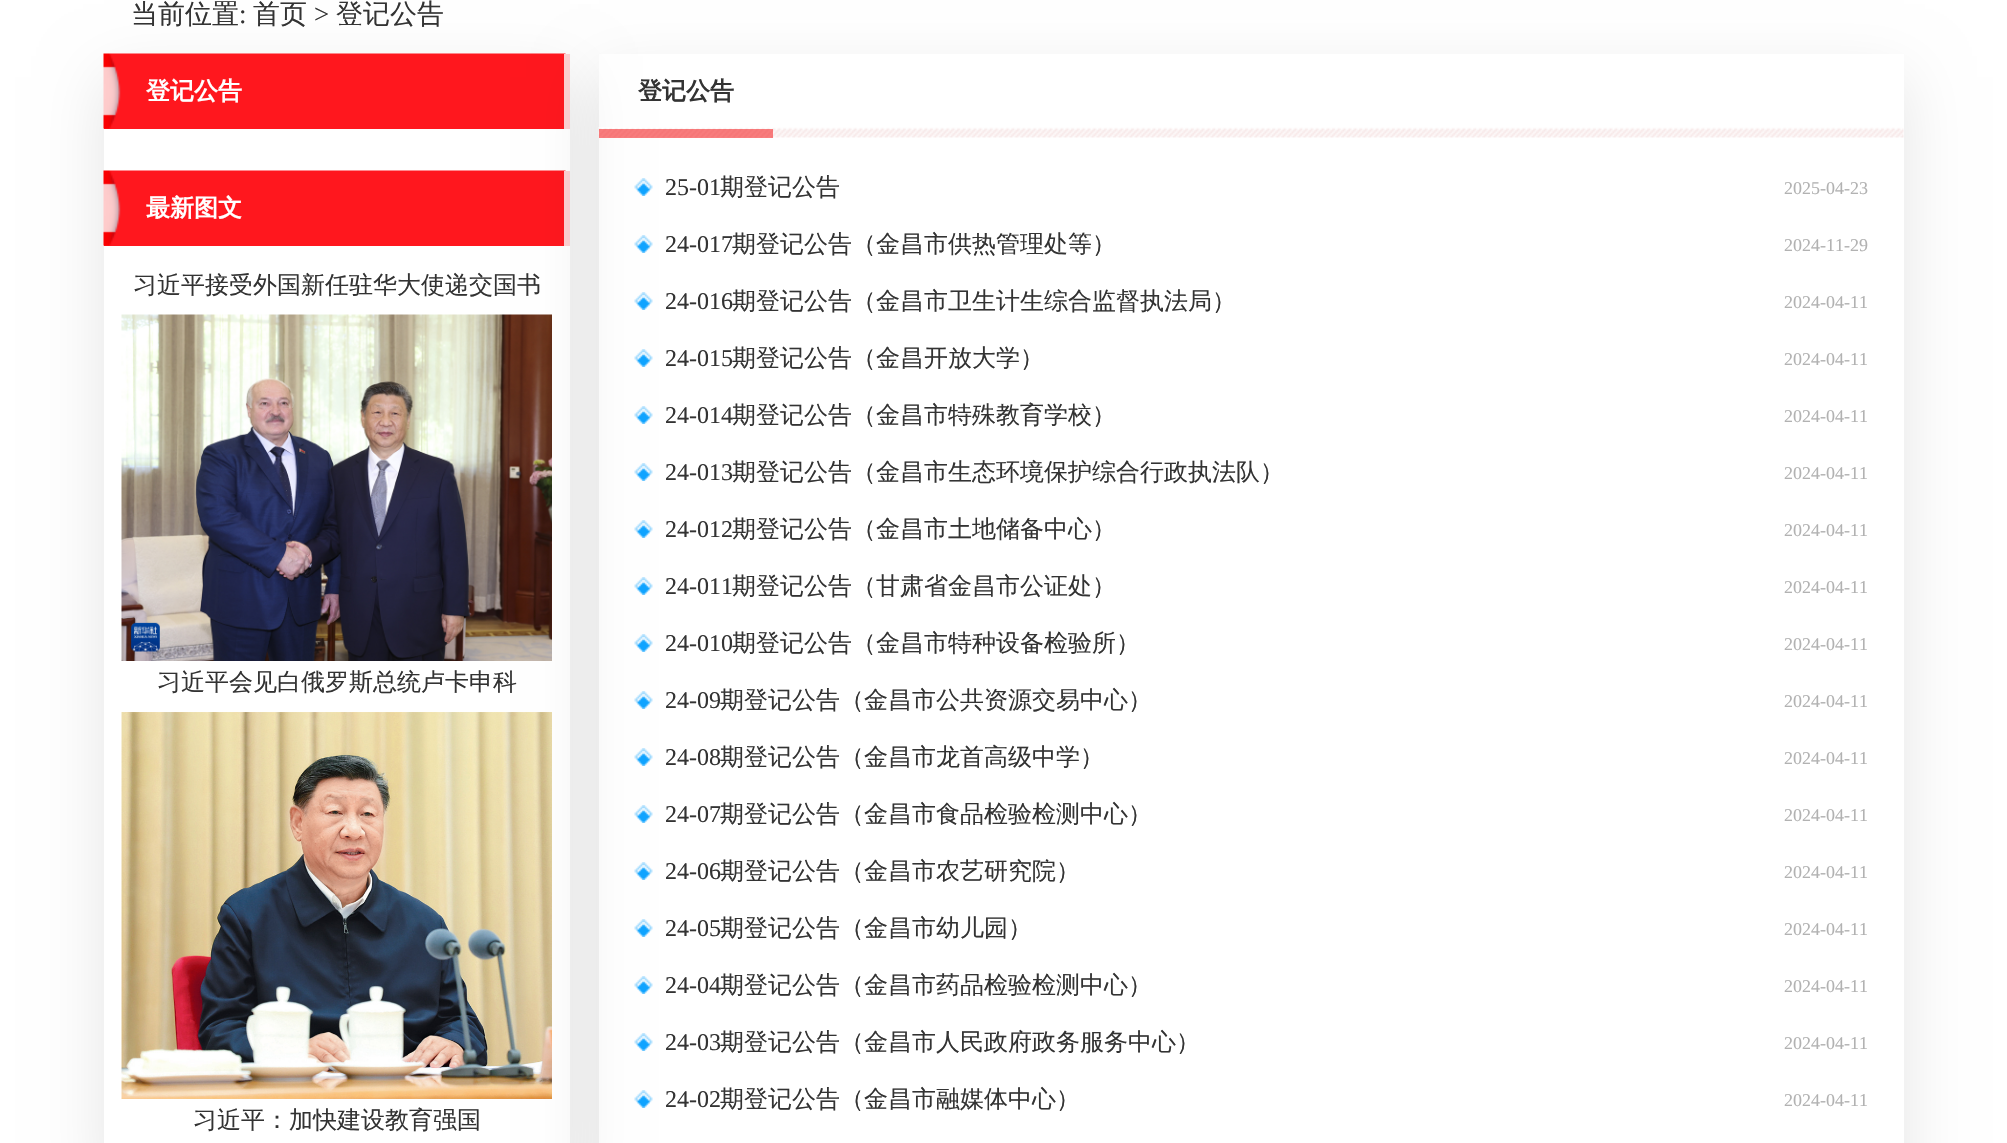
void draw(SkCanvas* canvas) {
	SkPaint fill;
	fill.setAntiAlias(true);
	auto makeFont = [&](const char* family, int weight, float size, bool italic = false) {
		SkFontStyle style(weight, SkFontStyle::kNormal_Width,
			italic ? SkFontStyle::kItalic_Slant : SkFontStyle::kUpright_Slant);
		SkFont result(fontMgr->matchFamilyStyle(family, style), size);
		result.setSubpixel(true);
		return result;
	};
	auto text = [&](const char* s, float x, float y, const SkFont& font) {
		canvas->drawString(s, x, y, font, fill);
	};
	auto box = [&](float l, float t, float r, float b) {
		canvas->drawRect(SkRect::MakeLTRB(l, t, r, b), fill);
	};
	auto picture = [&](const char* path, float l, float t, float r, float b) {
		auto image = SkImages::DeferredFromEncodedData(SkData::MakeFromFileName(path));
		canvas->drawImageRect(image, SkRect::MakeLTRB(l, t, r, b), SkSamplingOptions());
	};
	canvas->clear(0xFFFFFFFF);
	canvas->save();
	canvas->clipPath(SkPathBuilder(SkPathFillType::kEvenOdd).moveTo(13, 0).lineTo(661, 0).lineTo(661, 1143).lineTo(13, 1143).close().moveTo(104, 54).lineTo(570, 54).lineTo(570, 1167).lineTo(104, 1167).close().detach(), true);
	fill.setColor(0x1A000000);
	fill.setMaskFilter(SkMaskFilter::MakeBlur(kNormal_SkBlurStyle, 30));
	canvas->drawRect(SkRect::MakeLTRB(104, 77, 570, 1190), fill);
	fill.setMaskFilter(nullptr);
	canvas->restore();
	fill.setColor(0xFFFF171E);
	box(104, 128, 564, 129);
	picture("image0.png", 103, 53, 566, 129);
	fill.setColor(0xFFFED0D1);
	box(564, 54, 570, 129);
	fill.setColor(0xFFFF171E);
	box(104, 245, 564, 246);
	picture("image1.png", 103, 170, 566, 246);
	fill.setColor(0xFFFED0D1);
	box(564, 171, 570, 246);
	picture("image2.png", 121, 314, 552, 661);
	picture("image3.png", 121, 712, 552, 1099);
	canvas->save();
	canvas->clipPath(SkPathBuilder(SkPathFillType::kEvenOdd).moveTo(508, 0).lineTo(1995, 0).lineTo(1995, 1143).lineTo(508, 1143).close().moveTo(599, 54).lineTo(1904, 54).lineTo(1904, 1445).lineTo(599, 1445).close().detach(), true);
	fill.setColor(0x1A000000);
	fill.setMaskFilter(SkMaskFilter::MakeBlur(kNormal_SkBlurStyle, 30));
	canvas->drawRect(SkRect::MakeLTRB(599, 77, 1904, 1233), fill);
	fill.setMaskFilter(nullptr);
	canvas->restore();
	picture("image4.png", 598, 127, 1904, 138);
	fill.setColor(0x80F40103);
	box(599, 129, 773, 138);
	picture("image5.png", 634, 178, 653, 196);
	picture("image5.png", 634, 235, 653, 253);
	picture("image5.png", 634, 292, 653, 310);
	picture("image5.png", 634, 349, 653, 367);
	picture("image5.png", 634, 406, 653, 424);
	picture("image5.png", 634, 463, 653, 481);
	picture("image5.png", 634, 520, 653, 538);
	picture("image5.png", 634, 577, 653, 595);
	picture("image5.png", 634, 634, 653, 652);
	picture("image5.png", 634, 691, 653, 709);
	picture("image5.png", 634, 748, 653, 766);
	picture("image5.png", 634, 805, 653, 823);
	picture("image5.png", 634, 862, 653, 880);
	picture("image5.png", 634, 919, 653, 937);
	picture("image5.png", 634, 976, 653, 994);
	picture("image5.png", 634, 1033, 653, 1051);
	picture("image5.png", 634, 1090, 653, 1108);
	auto font1 = makeFont("WenQuanYi Zen Hei", 500, 27);
	fill.setColor(0xFF333333);
	text("当前位置", 131, 23, font1);
	auto font2 = makeFont("Liberation Serif", 400, 27);
	text(":", 239, 23, font2);
	text("首页", 253, 23, font1);
	text(">", 314, 23, font2);
	text("登记公告", 336, 23, font1);
	auto font3 = makeFont("WenQuanYi Zen Hei", 700, 24);
	fill.setColor(0xFFFFFFFF);
	text("登记公告", 146, 99, font3);
	text("最新图文", 146, 216, font3);
	auto font4 = makeFont("WenQuanYi Zen Hei", 500, 24);
	fill.setColor(0xFF333333);
	text("习近平接受外国新任驻华大使递交国书", 133, 293, font4);
	text("习近平会见白俄罗斯总统卢卡申科", 157, 690, font4);
	text("习近平：加快建设教育强国", 193, 1128, font4);
	text("登记公告", 638, 99, font3);
	auto font5 = makeFont("Liberation Serif", 400, 24);
	text("25-01", 665, 195, font5);
	text("期登记公告", 720, 195, font4);
	auto font6 = makeFont("Liberation Serif", 400, 18);
	fill.setColor(0xFFB2B2B2);
	text("2025-04-23", 1784, 194, font6);
	fill.setColor(0xFF333333);
	text("24-017", 665, 252, font5);
	text("期登记公告（金昌市供热管理处等）", 732, 252, font4);
	fill.setColor(0xFFB2B2B2);
	text("2024-11-29", 1784, 251, font6);
	fill.setColor(0xFF333333);
	text("24-016", 665, 309, font5);
	text("期登记公告（金昌市卫生计生综合监督执法局）", 732, 309, font4);
	fill.setColor(0xFFB2B2B2);
	text("2024-04-11", 1784, 308, font6);
	fill.setColor(0xFF333333);
	text("24-015", 665, 366, font5);
	text("期登记公告（金昌开放大学）", 732, 366, font4);
	fill.setColor(0xFFB2B2B2);
	text("2024-04-11", 1784, 365, font6);
	fill.setColor(0xFF333333);
	text("24-014", 665, 423, font5);
	text("期登记公告（金昌市特殊教育学校）", 732, 423, font4);
	fill.setColor(0xFFB2B2B2);
	text("2024-04-11", 1784, 422, font6);
	fill.setColor(0xFF333333);
	text("24-013", 665, 480, font5);
	text("期登记公告（金昌市生态环境保护综合行政执法队）", 732, 480, font4);
	fill.setColor(0xFFB2B2B2);
	text("2024-04-11", 1784, 479, font6);
	fill.setColor(0xFF333333);
	text("24-012", 665, 537, font5);
	text("期登记公告（金昌市土地储备中心）", 732, 537, font4);
	fill.setColor(0xFFB2B2B2);
	text("2024-04-11", 1784, 536, font6);
	fill.setColor(0xFF333333);
	text("24-011", 665, 594, font5);
	text("期登记公告（甘肃省金昌市公证处）", 732, 594, font4);
	fill.setColor(0xFFB2B2B2);
	text("2024-04-11", 1784, 593, font6);
	fill.setColor(0xFF333333);
	text("24-010", 665, 651, font5);
	text("期登记公告（金昌市特种设备检验所）", 732, 651, font4);
	fill.setColor(0xFFB2B2B2);
	text("2024-04-11", 1784, 650, font6);
	fill.setColor(0xFF333333);
	text("24-09", 665, 708, font5);
	text("期登记公告（金昌市公共资源交易中心）", 720, 708, font4);
	fill.setColor(0xFFB2B2B2);
	text("2024-04-11", 1784, 707, font6);
	fill.setColor(0xFF333333);
	text("24-08", 665, 765, font5);
	text("期登记公告（金昌市龙首高级中学）", 720, 765, font4);
	fill.setColor(0xFFB2B2B2);
	text("2024-04-11", 1784, 764, font6);
	fill.setColor(0xFF333333);
	text("24-07", 665, 822, font5);
	text("期登记公告（金昌市食品检验检测中心）", 720, 822, font4);
	fill.setColor(0xFFB2B2B2);
	text("2024-04-11", 1784, 821, font6);
	fill.setColor(0xFF333333);
	text("24-06", 665, 879, font5);
	text("期登记公告（金昌市农艺研究院）", 720, 879, font4);
	fill.setColor(0xFFB2B2B2);
	text("2024-04-11", 1784, 878, font6);
	fill.setColor(0xFF333333);
	text("24-05", 665, 936, font5);
	text("期登记公告（金昌市幼儿园）", 720, 936, font4);
	fill.setColor(0xFFB2B2B2);
	text("2024-04-11", 1784, 935, font6);
	fill.setColor(0xFF333333);
	text("24-04", 665, 993, font5);
	text("期登记公告（金昌市药品检验检测中心）", 720, 993, font4);
	fill.setColor(0xFFB2B2B2);
	text("2024-04-11", 1784, 992, font6);
	fill.setColor(0xFF333333);
	text("24-03", 665, 1050, font5);
	text("期登记公告（金昌市人民政府政务服务中心）", 720, 1050, font4);
	fill.setColor(0xFFB2B2B2);
	text("2024-04-11", 1784, 1049, font6);
	fill.setColor(0xFF333333);
	text("24-02", 665, 1107, font5);
	text("期登记公告（金昌市融媒体中心）", 720, 1107, font4);
	fill.setColor(0xFFB2B2B2);
	text("2024-04-11", 1784, 1106, font6);
}
